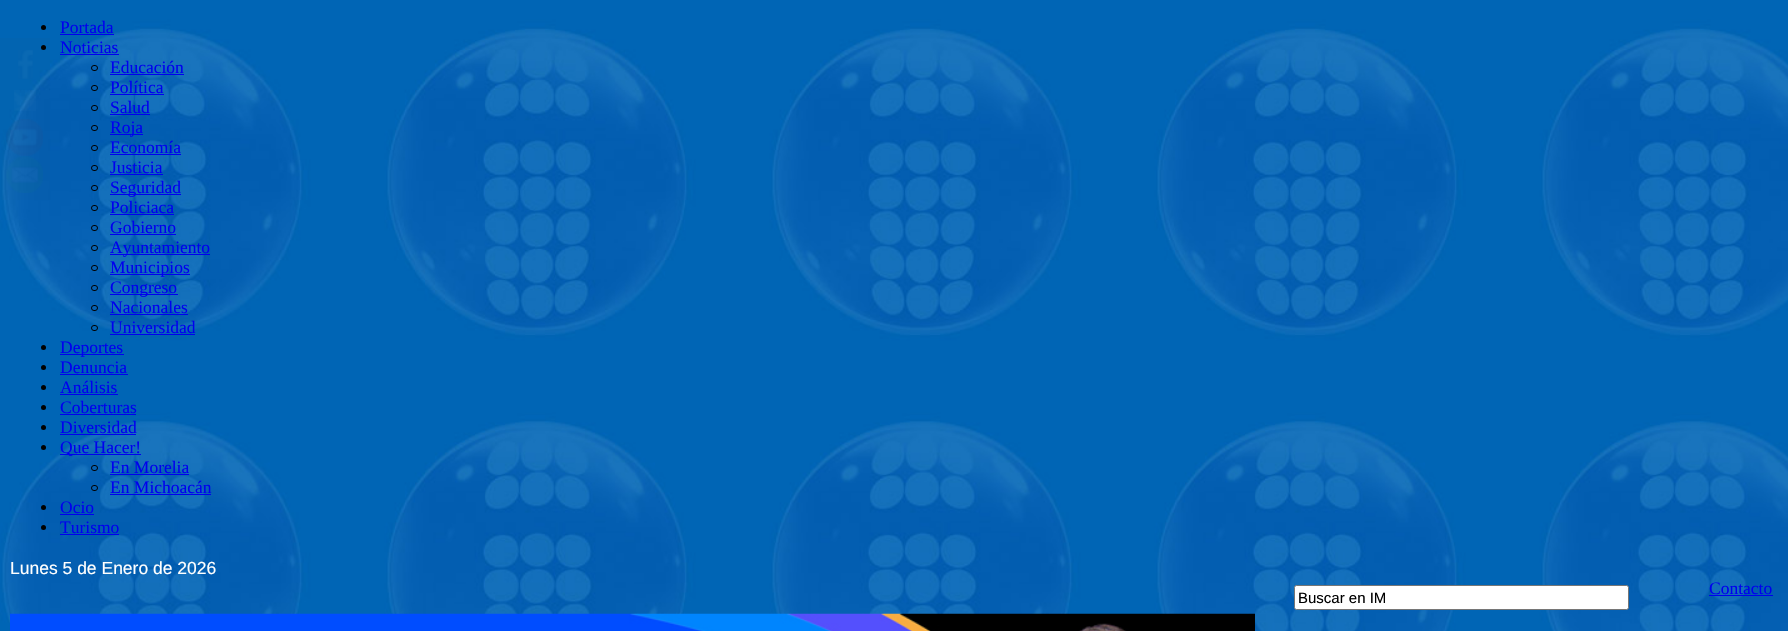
void draw(SkCanvas* canvas) {
	SkPaint fill;
	fill.setAntiAlias(true);
	auto makeFont = [&](const char* family, int weight, float size, bool italic = false) {
		SkFontStyle style(weight, SkFontStyle::kNormal_Width,
			italic ? SkFontStyle::kItalic_Slant : SkFontStyle::kUpright_Slant);
		SkFont result(fontMgr->matchFamilyStyle(family, style), size);
		result.setSubpixel(true);
		return result;
	};
	auto text = [&](const char* s, float x, float y, const SkFont& font) {
		canvas->drawString(s, x, y, font, fill);
	};
	auto box = [&](float l, float t, float r, float b) {
		canvas->drawRect(SkRect::MakeLTRB(l, t, r, b), fill);
	};
	auto picture = [&](const char* path, float l, float t, float r, float b) {
		auto image = SkImages::DeferredFromEncodedData(SkData::MakeFromFileName(path));
		canvas->drawImageRect(image, SkRect::MakeLTRB(l, t, r, b), SkSamplingOptions());
	};
	canvas->clear(0xFFFFFFFF);
	picture("image0.png", 0, 0, 1788, 631);
	fill.setColor(0xFF000000);
	canvas->drawCircle(43.5f, 27.5f, 2.5f, fill);
	fill.setColor(0xFF0000EE);
	box(60, 34, 114, 35);
	fill.setColor(0xFF000000);
	canvas->drawCircle(43.5f, 47.5f, 2.5f, fill);
	fill.setColor(0xFF0000EE);
	box(60, 54, 119, 55);
	fill.setStyle(SkPaint::kStroke_Style);
	fill.setStrokeWidth(1);
	fill.setColor(0xFF000000);
	canvas->drawRoundRect(SkRect::MakeLTRB(91.5f, 65.5f, 97.5f, 70.5f), 2.5f, 2.5f, fill);
	fill.setStyle(SkPaint::kFill_Style);
	fill.setColor(0xFF0000EE);
	box(110, 74, 184, 75);
	fill.setStyle(SkPaint::kStroke_Style);
	fill.setColor(0xFF000000);
	canvas->drawRoundRect(SkRect::MakeLTRB(91.5f, 85.5f, 97.5f, 90.5f), 2.5f, 2.5f, fill);
	fill.setStyle(SkPaint::kFill_Style);
	fill.setColor(0xFF0000EE);
	box(110, 94, 164, 95);
	fill.setStyle(SkPaint::kStroke_Style);
	fill.setColor(0xFF000000);
	canvas->drawRoundRect(SkRect::MakeLTRB(91.5f, 105.5f, 97.5f, 110.5f), 2.5f, 2.5f, fill);
	fill.setStyle(SkPaint::kFill_Style);
	fill.setColor(0xFF0000EE);
	box(110, 114, 150, 115);
	fill.setStyle(SkPaint::kStroke_Style);
	fill.setColor(0xFF000000);
	canvas->drawRoundRect(SkRect::MakeLTRB(91.5f, 125.5f, 97.5f, 130.5f), 2.5f, 2.5f, fill);
	fill.setStyle(SkPaint::kFill_Style);
	fill.setColor(0xFF0000EE);
	box(110, 134, 143, 135);
	fill.setStyle(SkPaint::kStroke_Style);
	fill.setColor(0xFF000000);
	canvas->drawRoundRect(SkRect::MakeLTRB(91.5f, 145.5f, 97.5f, 150.5f), 2.5f, 2.5f, fill);
	fill.setStyle(SkPaint::kFill_Style);
	fill.setColor(0xFF0000EE);
	box(110, 154, 181, 155);
	fill.setStyle(SkPaint::kStroke_Style);
	fill.setColor(0xFF000000);
	canvas->drawRoundRect(SkRect::MakeLTRB(91.5f, 165.5f, 97.5f, 170.5f), 2.5f, 2.5f, fill);
	fill.setStyle(SkPaint::kFill_Style);
	fill.setColor(0xFF0000EE);
	box(110, 174, 163, 175);
	fill.setStyle(SkPaint::kStroke_Style);
	fill.setColor(0xFF000000);
	canvas->drawRoundRect(SkRect::MakeLTRB(91.5f, 185.5f, 97.5f, 190.5f), 2.5f, 2.5f, fill);
	fill.setStyle(SkPaint::kFill_Style);
	fill.setColor(0xFF0000EE);
	box(110, 194, 181, 195);
	fill.setStyle(SkPaint::kStroke_Style);
	fill.setColor(0xFF000000);
	canvas->drawRoundRect(SkRect::MakeLTRB(91.5f, 205.5f, 97.5f, 210.5f), 2.5f, 2.5f, fill);
	fill.setStyle(SkPaint::kFill_Style);
	fill.setColor(0xFF0000EE);
	box(110, 214, 174, 215);
	fill.setStyle(SkPaint::kStroke_Style);
	fill.setColor(0xFF000000);
	canvas->drawRoundRect(SkRect::MakeLTRB(91.5f, 225.5f, 97.5f, 230.5f), 2.5f, 2.5f, fill);
	fill.setStyle(SkPaint::kFill_Style);
	fill.setColor(0xFF0000EE);
	box(110, 234, 176, 235);
	fill.setStyle(SkPaint::kStroke_Style);
	fill.setColor(0xFF000000);
	canvas->drawRoundRect(SkRect::MakeLTRB(91.5f, 245.5f, 97.5f, 250.5f), 2.5f, 2.5f, fill);
	fill.setStyle(SkPaint::kFill_Style);
	fill.setColor(0xFF0000EE);
	box(110, 254, 210, 255);
	fill.setStyle(SkPaint::kStroke_Style);
	fill.setColor(0xFF000000);
	canvas->drawRoundRect(SkRect::MakeLTRB(91.5f, 265.5f, 97.5f, 270.5f), 2.5f, 2.5f, fill);
	fill.setStyle(SkPaint::kFill_Style);
	fill.setColor(0xFF0000EE);
	box(110, 274, 190, 275);
	fill.setStyle(SkPaint::kStroke_Style);
	fill.setColor(0xFF000000);
	canvas->drawRoundRect(SkRect::MakeLTRB(91.5f, 285.5f, 97.5f, 290.5f), 2.5f, 2.5f, fill);
	fill.setStyle(SkPaint::kFill_Style);
	fill.setColor(0xFF0000EE);
	box(110, 294, 178, 295);
	fill.setStyle(SkPaint::kStroke_Style);
	fill.setColor(0xFF000000);
	canvas->drawRoundRect(SkRect::MakeLTRB(91.5f, 305.5f, 97.5f, 310.5f), 2.5f, 2.5f, fill);
	fill.setStyle(SkPaint::kFill_Style);
	fill.setColor(0xFF0000EE);
	box(110, 314, 188, 315);
	fill.setStyle(SkPaint::kStroke_Style);
	fill.setColor(0xFF000000);
	canvas->drawRoundRect(SkRect::MakeLTRB(91.5f, 325.5f, 97.5f, 330.5f), 2.5f, 2.5f, fill);
	fill.setStyle(SkPaint::kFill_Style);
	fill.setColor(0xFF0000EE);
	box(110, 334, 195, 335);
	fill.setColor(0xFF000000);
	canvas->drawCircle(43.5f, 347.5f, 2.5f, fill);
	fill.setColor(0xFF0000EE);
	box(60, 354, 124, 355);
	fill.setColor(0xFF000000);
	canvas->drawCircle(43.5f, 367.5f, 2.5f, fill);
	fill.setColor(0xFF0000EE);
	box(60, 374, 128, 375);
	fill.setColor(0xFF000000);
	canvas->drawCircle(43.5f, 387.5f, 2.5f, fill);
	fill.setColor(0xFF0000EE);
	box(60, 394, 118, 395);
	fill.setColor(0xFF000000);
	canvas->drawCircle(43.5f, 407.5f, 2.5f, fill);
	fill.setColor(0xFF0000EE);
	box(60, 414, 136, 415);
	fill.setColor(0xFF000000);
	canvas->drawCircle(43.5f, 427.5f, 2.5f, fill);
	fill.setColor(0xFF0000EE);
	box(60, 434, 136, 435);
	fill.setColor(0xFF000000);
	canvas->drawCircle(43.5f, 447.5f, 2.5f, fill);
	fill.setColor(0xFF0000EE);
	box(60, 454, 141, 455);
	fill.setStyle(SkPaint::kStroke_Style);
	fill.setColor(0xFF000000);
	canvas->drawRoundRect(SkRect::MakeLTRB(91.5f, 465.5f, 97.5f, 470.5f), 2.5f, 2.5f, fill);
	fill.setStyle(SkPaint::kFill_Style);
	fill.setColor(0xFF0000EE);
	box(110, 474, 189, 475);
	fill.setStyle(SkPaint::kStroke_Style);
	fill.setColor(0xFF000000);
	canvas->drawRoundRect(SkRect::MakeLTRB(91.5f, 485.5f, 97.5f, 490.5f), 2.5f, 2.5f, fill);
	fill.setStyle(SkPaint::kFill_Style);
	fill.setColor(0xFF0000EE);
	box(110, 494, 211, 495);
	fill.setColor(0xFF000000);
	canvas->drawCircle(43.5f, 507.5f, 2.5f, fill);
	fill.setColor(0xFF0000EE);
	box(60, 514, 94, 515);
	fill.setColor(0xFF000000);
	canvas->drawCircle(43.5f, 527.5f, 2.5f, fill);
	fill.setColor(0xFF0000EE);
	box(60, 534, 119, 535);
	box(1709, 595, 1773, 596);
	fill.setColor(0xFFFFFFFF);
	canvas->drawRoundRect(SkRect::MakeLTRB(1294.5f, 585.5f, 1628.5f, 609.5f), 2, 2, fill);
	fill.setStyle(SkPaint::kStroke_Style);
	fill.setColor(0xFF767676);
	canvas->drawRoundRect(SkRect::MakeLTRB(1294.5f, 585.5f, 1628.5f, 609.5f), 2, 2, fill);
	picture("image1.png", 10, 613, 1255, 631);
	fill.setStyle(SkPaint::kFill_Style);
	fill.setColor(0x08333333);
	box(0, 38, 50, 200);
	picture("image2.png", 18, 50, 33, 79);
	picture("image3.png", 14, 90, 36, 111);
	picture("image4.png", 6, 119, 43, 156);
	picture("image5.png", 6, 156, 43, 193);
	auto font1 = makeFont("Liberation Serif", 400, 17.5f);
	fill.setColor(0xFF0000EE);
	text("Portada", 60, 33, font1);
	text("Noticias", 60, 53, font1);
	text("Educación", 110, 73, font1);
	text("Política", 110, 93, font1);
	text("Salud", 110, 113, font1);
	text("Roja", 110, 133, font1);
	text("Economía", 110, 153, font1);
	text("Justicia", 110, 173, font1);
	text("Seguridad", 110, 193, font1);
	text("Policiaca", 110, 213, font1);
	text("Gobierno", 110, 233, font1);
	text("Ayuntamiento", 110, 253, font1);
	text("Municipios", 110, 273, font1);
	text("Congreso", 110, 293, font1);
	text("Nacionales", 110, 313, font1);
	text("Universidad", 110, 333, font1);
	text("Deportes", 60, 353, font1);
	text("Denuncia", 60, 373, font1);
	text("Análisis", 60, 393, font1);
	text("Coberturas", 60, 413, font1);
	text("Diversidad", 60, 433, font1);
	text("Que Hacer!", 60, 453, font1);
	text("En Morelia", 110, 473, font1);
	text("En Michoacán", 110, 493, font1);
	text("Ocio", 60, 513, font1);
	text("Turismo", 60, 533, font1);
	auto font2 = makeFont("Liberation Sans", 400, 17.5f);
	fill.setColor(0xFFFFFFFF);
	text("Lunes 5 de Enero de 2026", 10, 574, font2);
	fill.setColor(0xFF0000EE);
	text("Contacto", 1709, 594, font1);
	auto font3 = makeFont("Liberation Sans", 400, 15);
	fill.setColor(0xFF000000);
	text("Buscar en IM", 1298, 603, font3);
}
